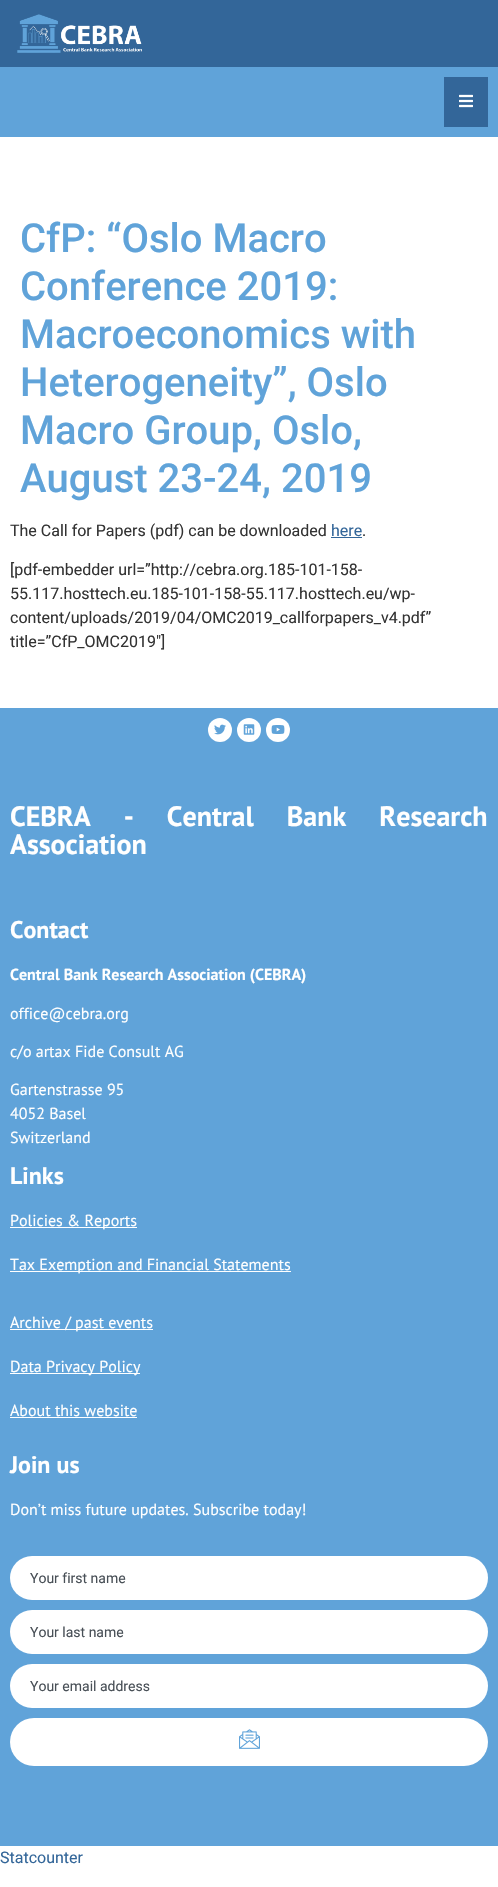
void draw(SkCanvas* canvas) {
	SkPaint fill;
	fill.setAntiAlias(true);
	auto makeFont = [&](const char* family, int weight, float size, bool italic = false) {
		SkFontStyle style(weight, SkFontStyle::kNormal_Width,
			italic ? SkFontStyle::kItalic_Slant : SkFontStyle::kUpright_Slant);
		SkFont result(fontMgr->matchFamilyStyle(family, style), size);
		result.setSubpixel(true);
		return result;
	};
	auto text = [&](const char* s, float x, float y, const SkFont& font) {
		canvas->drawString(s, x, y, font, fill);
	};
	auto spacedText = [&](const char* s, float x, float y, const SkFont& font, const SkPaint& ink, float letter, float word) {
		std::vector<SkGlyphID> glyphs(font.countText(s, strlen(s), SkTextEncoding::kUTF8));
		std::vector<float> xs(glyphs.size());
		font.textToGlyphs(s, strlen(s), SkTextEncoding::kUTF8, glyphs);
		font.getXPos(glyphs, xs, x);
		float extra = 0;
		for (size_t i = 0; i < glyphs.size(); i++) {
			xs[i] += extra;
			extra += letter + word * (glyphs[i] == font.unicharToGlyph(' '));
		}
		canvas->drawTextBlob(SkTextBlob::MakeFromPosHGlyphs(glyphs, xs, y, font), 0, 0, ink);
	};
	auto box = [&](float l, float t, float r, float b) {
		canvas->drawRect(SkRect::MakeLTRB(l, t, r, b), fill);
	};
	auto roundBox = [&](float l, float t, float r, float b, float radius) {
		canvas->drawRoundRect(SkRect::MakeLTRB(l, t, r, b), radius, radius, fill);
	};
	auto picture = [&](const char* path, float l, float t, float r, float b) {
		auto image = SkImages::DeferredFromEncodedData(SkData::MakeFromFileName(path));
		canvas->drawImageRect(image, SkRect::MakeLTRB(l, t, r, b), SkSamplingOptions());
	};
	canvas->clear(0xFFFFFFFF);
	fill.setColor(0xFF336699);
	box(0, 0, 498, 67);
	picture("image0.png", 17, 14, 142, 53);
	fill.setColor(0xFF60A3D9);
	box(0, 67, 498, 137);
	fill.setColor(0xFF336699);
	box(444, 77, 488, 127);
	picture("image1.png", 459, 94, 473, 108);
	box(331, 537, 362, 538);
	fill.setColor(0xFF60A3D9);
	box(0, 708, 498, 1846);
	fill.setColor(0xFFFFFFFF);
	canvas->drawCircle(220, 730, 12, fill);
	picture("image2.png", 214, 724, 226, 735);
	canvas->drawCircle(249, 730, 12, fill);
	picture("image3.png", 243, 724, 255, 735);
	canvas->drawCircle(278, 730, 12, fill);
	picture("image4.png", 271, 725, 285, 734);
	box(10, 1227, 137, 1228);
	box(10, 1271, 291, 1272);
	box(10, 1329, 153, 1330);
	box(10, 1373, 140, 1374);
	box(10, 1417, 137, 1418);
	roundBox(10, 1556, 488, 1600, 22);
	roundBox(10, 1610, 488, 1654, 22);
	roundBox(10, 1664, 488, 1708, 22);
	roundBox(10, 1718, 488, 1766, 24);
	picture("image5.png", 239, 1729, 260, 1749);
	auto font1 = makeFont("Roboto", 500, 40);
	fill.setColor(0xFF60A3D9);
	text("CfP: “Oslo Macro", 20, 252, font1);
	text("Conference 2019:", 20, 300, font1);
	text("Macroeconomics with", 20, 348, font1);
	text("Heterogeneity”, Oslo", 20, 396, font1);
	text("Macro Group, Oslo,", 20, 444, font1);
	text("August 23-24, 2019", 20, 492, font1);
	auto font2 = makeFont("Roboto", 400, 16);
	fill.setColor(0xFF333333);
	text("The Call for Papers (pdf) can be downloaded", 10, 536, font2);
	fill.setColor(0xFF336699);
	text("here", 331, 536, font2);
	fill.setColor(0xFF333333);
	text(".", 362, 536, font2);
	text("[pdf-embedder url=”http://cebra.org.185-101-158-", 10, 575, font2);
	text("55.117.hosttech.eu.185-101-158-55.117.hosttech.eu/wp-", 10, 599, font2);
	text("content/uploads/2019/04/OMC2019_callforpapers_v4.pdf”", 10, 623, font2);
	text("title=”CfP_OMC2019″]", 10, 647, font2);
	auto font3 = makeFont("PT Sans", 700, 28);
	fill.setColor(0xFFFFFFFF);
	spacedText("CEBRA - Central Bank Research", 10, 826, font3, fill, 0, 26);
	text("Association", 10, 854, font3);
	auto font4 = makeFont("PT Sans", 700, 24);
	text("Contact", 10, 938, font4);
	auto font5 = makeFont("PT Sans", 700, 16);
	text("Central Bank Research Association (CEBRA)", 10, 980, font5);
	auto font6 = makeFont("PT Sans", 400, 16);
	text("office@cebra.org", 10, 1019, font6);
	text("c/o artax Fide Consult AG", 10, 1057, font6);
	text("Gartenstrasse 95", 10, 1095, font6);
	text("4052 Basel", 10, 1119, font6);
	text("Switzerland", 10, 1143, font6);
	text("Links", 10, 1184, font4);
	text("Policies & Reports", 10, 1226, font6);
	text("Tax Exemption and Financial Statements", 10, 1270, font6);
	text("Archive / past events", 10, 1328, font6);
	text("Data Privacy Policy", 10, 1372, font6);
	text("About this website", 10, 1416, font6);
	text("Join us", 10, 1473, font4);
	text("Don’t miss future updates. Subscribe today!", 10, 1515, font6);
	auto font7 = makeFont("Roboto", 400, 14);
	fill.setColor(0xFF495057);
	text("Your first name", 30, 1583, font7);
	text("Your last name", 30, 1637, font7);
	text("Your email address", 30, 1691, font7);
	fill.setColor(0xFF336699);
	text("Statcounter", 0, 1863, font2);
}
